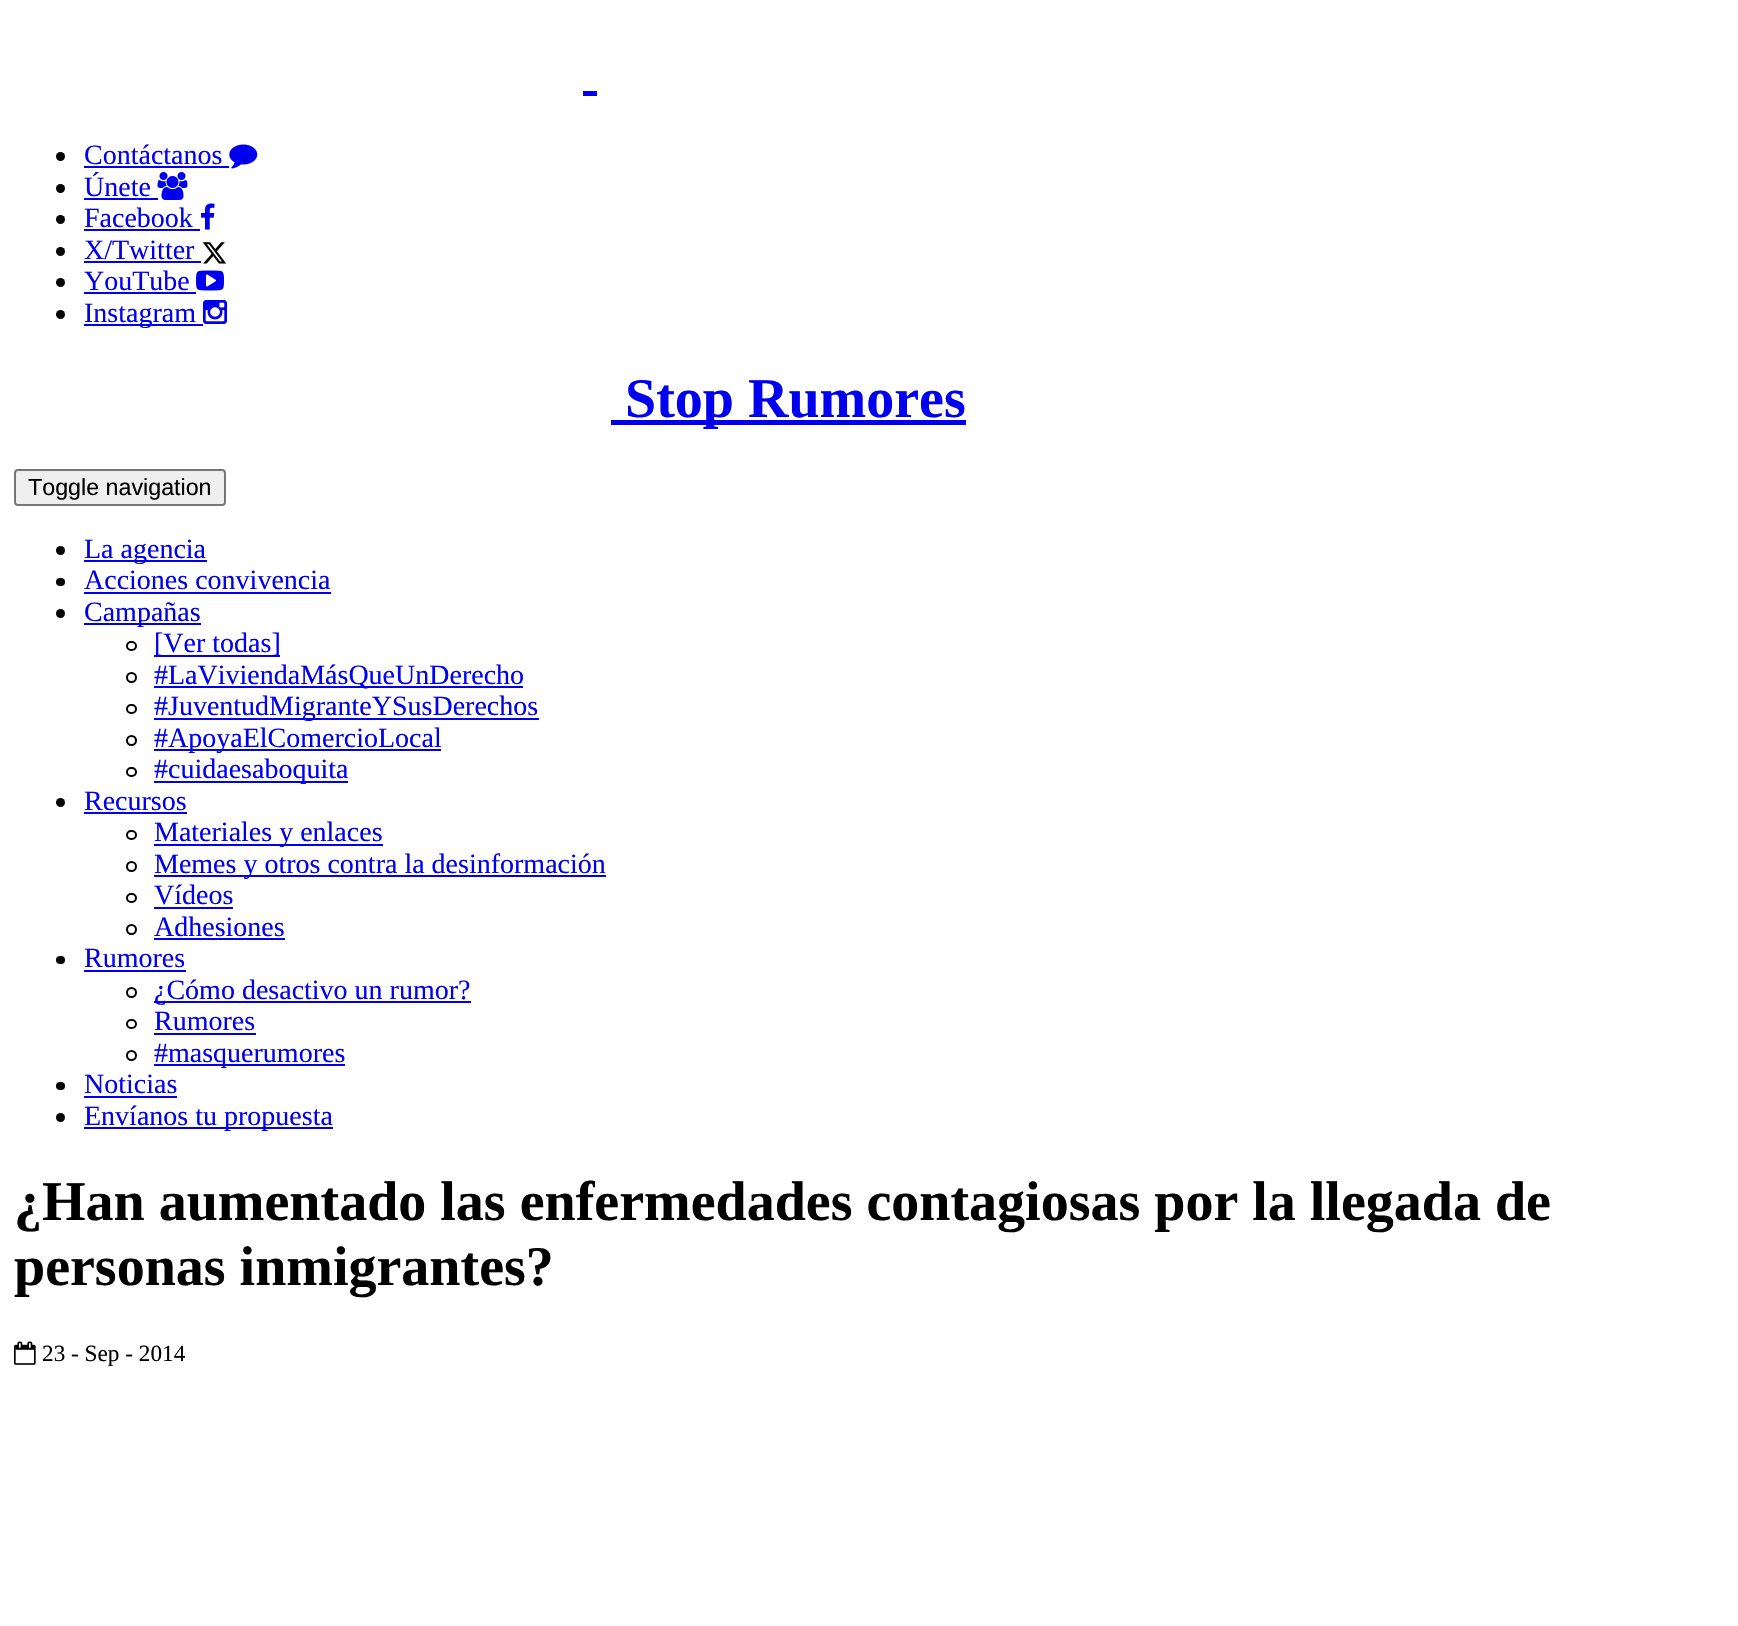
void draw(SkCanvas* canvas) {
	SkPaint fill;
	fill.setAntiAlias(true);
	auto makeFont = [&](const char* family, int weight, float size, bool italic = false) {
		SkFontStyle style(weight, SkFontStyle::kNormal_Width,
			italic ? SkFontStyle::kItalic_Slant : SkFontStyle::kUpright_Slant);
		SkFont result(fontMgr->matchFamilyStyle(family, style), size);
		result.setSubpixel(true);
		return result;
	};
	auto text = [&](const char* s, float x, float y, const SkFont& font) {
		canvas->drawString(s, x, y, font, fill);
	};
	auto box = [&](float l, float t, float r, float b) {
		canvas->drawRect(SkRect::MakeLTRB(l, t, r, b), fill);
	};
	auto roundBox = [&](float l, float t, float r, float b, float radius) {
		canvas->drawRoundRect(SkRect::MakeLTRB(l, t, r, b), radius, radius, fill);
	};
	auto picture = [&](const char* path, float l, float t, float r, float b) {
		auto image = SkImages::DeferredFromEncodedData(SkData::MakeFromFileName(path));
		canvas->drawImageRect(image, SkRect::MakeLTRB(l, t, r, b), SkSamplingOptions());
	};
	canvas->clear(0xFFFFFFFF);
	fill.setColor(0xFF0000EE);
	box(583, 91, 597, 96);
	fill.setColor(0xFF000000);
	canvas->drawCircle(60.5f, 156.5f, 4.5f, fill);
	fill.setColor(0xFF0000EE);
	box(84, 166, 229, 168);
	picture("image0.png", 229, 144, 258, 169);
	fill.setColor(0xFF000000);
	canvas->drawCircle(60.5f, 188.5f, 4.5f, fill);
	fill.setColor(0xFF0000EE);
	box(84, 198, 158, 200);
	picture("image1.png", 157, 172, 188, 200);
	fill.setColor(0xFF000000);
	canvas->drawCircle(60.5f, 219.5f, 4.5f, fill);
	fill.setColor(0xFF0000EE);
	box(84, 229, 200, 231);
	picture("image2.png", 201, 203, 215, 230);
	fill.setColor(0xFF000000);
	canvas->drawCircle(60.5f, 251.5f, 4.5f, fill);
	fill.setColor(0xFF0000EE);
	box(84, 261, 201, 263);
	picture("image3.png", 202, 242, 227, 264);
	fill.setColor(0xFF000000);
	canvas->drawCircle(60.5f, 282.5f, 4.5f, fill);
	fill.setColor(0xFF0000EE);
	box(84, 292, 196, 294);
	picture("image4.png", 196, 270, 224, 291);
	fill.setColor(0xFF000000);
	canvas->drawCircle(60.5f, 314.5f, 4.5f, fill);
	fill.setColor(0xFF0000EE);
	box(84, 324, 203, 326);
	picture("image5.png", 203, 300, 227, 324);
	box(611, 420, 966, 425);
	fill.setColor(0xFFEFEFEF);
	canvas->drawRoundRect(SkRect::MakeLTRB(15, 470, 225, 505), 3, 3, fill);
	fill.setStyle(SkPaint::kStroke_Style);
	fill.setStrokeWidth(2);
	fill.setColor(0xFF767676);
	canvas->drawRoundRect(SkRect::MakeLTRB(15, 470, 225, 505), 3, 3, fill);
	fill.setStyle(SkPaint::kFill_Style);
	fill.setColor(0xFF000000);
	canvas->drawCircle(60.5f, 550.5f, 4.5f, fill);
	fill.setColor(0xFF0000EE);
	box(84, 560, 207, 562);
	fill.setColor(0xFF000000);
	roundBox(56, 578, 65, 586, 4);
	fill.setColor(0xFF0000EE);
	box(84, 592, 331, 594);
	fill.setColor(0xFF000000);
	canvas->drawCircle(60.5f, 613.5f, 4.5f, fill);
	fill.setColor(0xFF0000EE);
	box(84, 623, 201, 625);
	fill.setStyle(SkPaint::kStroke_Style);
	fill.setColor(0xFF000000);
	canvas->drawRoundRect(SkRect::MakeLTRB(127, 642, 136, 650), 4, 4, fill);
	fill.setStyle(SkPaint::kFill_Style);
	fill.setColor(0xFF0000EE);
	box(154, 655, 280, 657);
	fill.setStyle(SkPaint::kStroke_Style);
	fill.setColor(0xFF000000);
	canvas->drawCircle(131.5f, 677.5f, 4.5f, fill);
	fill.setStyle(SkPaint::kFill_Style);
	fill.setColor(0xFF0000EE);
	box(154, 686, 523, 688);
	fill.setStyle(SkPaint::kStroke_Style);
	fill.setColor(0xFF000000);
	canvas->drawRoundRect(SkRect::MakeLTRB(127, 705, 136, 713), 4, 4, fill);
	fill.setStyle(SkPaint::kFill_Style);
	fill.setColor(0xFF0000EE);
	box(154, 718, 539, 720);
	fill.setStyle(SkPaint::kStroke_Style);
	fill.setColor(0xFF000000);
	canvas->drawCircle(131.5f, 740.5f, 4.5f, fill);
	fill.setStyle(SkPaint::kFill_Style);
	fill.setColor(0xFF0000EE);
	box(154, 749, 441, 751);
	fill.setStyle(SkPaint::kStroke_Style);
	fill.setColor(0xFF000000);
	canvas->drawRoundRect(SkRect::MakeLTRB(127, 768, 136, 776), 4, 4, fill);
	fill.setStyle(SkPaint::kFill_Style);
	fill.setColor(0xFF0000EE);
	box(154, 781, 348, 783);
	fill.setColor(0xFF000000);
	canvas->drawCircle(60.5f, 802.5f, 4.5f, fill);
	fill.setColor(0xFF0000EE);
	box(84, 812, 187, 814);
	fill.setStyle(SkPaint::kStroke_Style);
	fill.setColor(0xFF000000);
	canvas->drawRoundRect(SkRect::MakeLTRB(127, 831, 136, 839), 4, 4, fill);
	fill.setStyle(SkPaint::kFill_Style);
	fill.setColor(0xFF0000EE);
	box(154, 844, 383, 846);
	fill.setStyle(SkPaint::kStroke_Style);
	fill.setColor(0xFF000000);
	canvas->drawCircle(131.5f, 866.5f, 4.5f, fill);
	fill.setStyle(SkPaint::kFill_Style);
	fill.setColor(0xFF0000EE);
	box(154, 875, 606, 877);
	fill.setStyle(SkPaint::kStroke_Style);
	fill.setColor(0xFF000000);
	canvas->drawRoundRect(SkRect::MakeLTRB(127, 894, 136, 902), 4, 4, fill);
	fill.setStyle(SkPaint::kFill_Style);
	fill.setColor(0xFF0000EE);
	box(154, 907, 233, 909);
	fill.setStyle(SkPaint::kStroke_Style);
	fill.setColor(0xFF000000);
	canvas->drawCircle(131.5f, 929.5f, 4.5f, fill);
	fill.setStyle(SkPaint::kFill_Style);
	fill.setColor(0xFF0000EE);
	box(154, 938, 285, 940);
	fill.setColor(0xFF000000);
	roundBox(56, 956, 65, 964, 4);
	fill.setColor(0xFF0000EE);
	box(84, 970, 186, 972);
	fill.setStyle(SkPaint::kStroke_Style);
	fill.setColor(0xFF000000);
	canvas->drawCircle(131.5f, 992.5f, 4.5f, fill);
	fill.setStyle(SkPaint::kFill_Style);
	fill.setColor(0xFF0000EE);
	box(154, 1001, 471, 1003);
	fill.setStyle(SkPaint::kStroke_Style);
	fill.setColor(0xFF000000);
	canvas->drawRoundRect(SkRect::MakeLTRB(127, 1020, 136, 1028), 4, 4, fill);
	fill.setStyle(SkPaint::kFill_Style);
	fill.setColor(0xFF0000EE);
	box(154, 1033, 256, 1035);
	fill.setStyle(SkPaint::kStroke_Style);
	fill.setColor(0xFF000000);
	canvas->drawCircle(131.5f, 1055.5f, 4.5f, fill);
	fill.setStyle(SkPaint::kFill_Style);
	fill.setColor(0xFF0000EE);
	box(154, 1064, 345, 1066);
	fill.setColor(0xFF000000);
	roundBox(56, 1082, 65, 1090, 4);
	fill.setColor(0xFF0000EE);
	box(84, 1096, 177, 1098);
	fill.setColor(0xFF000000);
	canvas->drawCircle(60.5f, 1117.5f, 4.5f, fill);
	fill.setColor(0xFF0000EE);
	box(84, 1127, 333, 1129);
	picture("image6.png", 14, 1341, 36, 1365);
	auto font1 = makeFont("Liberation Serif", 400, 28);
	text("Contáctanos", 84, 164, font1);
	text("Únete", 84, 196, font1);
	text("Facebook", 84, 227, font1);
	text("X/Twitter", 84, 259, font1);
	text("YouTube", 84, 290, font1);
	text("Instagram", 84, 322, font1);
	auto font2 = makeFont("Liberation Serif", 700, 56);
	text("Stop Rumores", 625, 417, font2);
	auto font3 = makeFont("Liberation Sans", 400, 23.25f);
	fill.setColor(0xFF000000);
	text("Toggle navigation", 28, 495, font3);
	fill.setColor(0xFF0000EE);
	text("La agencia", 84, 558, font1);
	text("Acciones convivencia", 84, 589, font1);
	text("Campañas", 84, 621, font1);
	text("[Ver todas]", 154, 652, font1);
	text("#LaViviendaMásQueUnDerecho", 154, 684, font1);
	text("#JuventudMigranteYSusDerechos", 154, 715, font1);
	text("#ApoyaElComercioLocal", 154, 747, font1);
	text("#cuidaesaboquita", 154, 778, font1);
	text("Recursos", 84, 810, font1);
	text("Materiales y enlaces", 154, 841, font1);
	text("Memes y otros contra la desinformación", 154, 873, font1);
	text("Vídeos", 154, 904, font1);
	text("Adhesiones", 154, 936, font1);
	text("Rumores", 84, 967, font1);
	text("¿Cómo desactivo un rumor?", 154, 999, font1);
	text("Rumores", 154, 1030, font1);
	text("#masquerumores", 154, 1062, font1);
	text("Noticias", 84, 1093, font1);
	text("Envíanos tu propuesta", 84, 1125, font1);
	fill.setColor(0xFF000000);
	text("¿Han aumentado las enfermedades contagiosas por la llegada de", 14, 1220, font2);
	text("personas inmigrantes?", 14, 1285, font2);
	auto font4 = makeFont("Liberation Serif", 400, 23.25f);
	text("23 - Sep - 2014", 42, 1361, font4);
}
